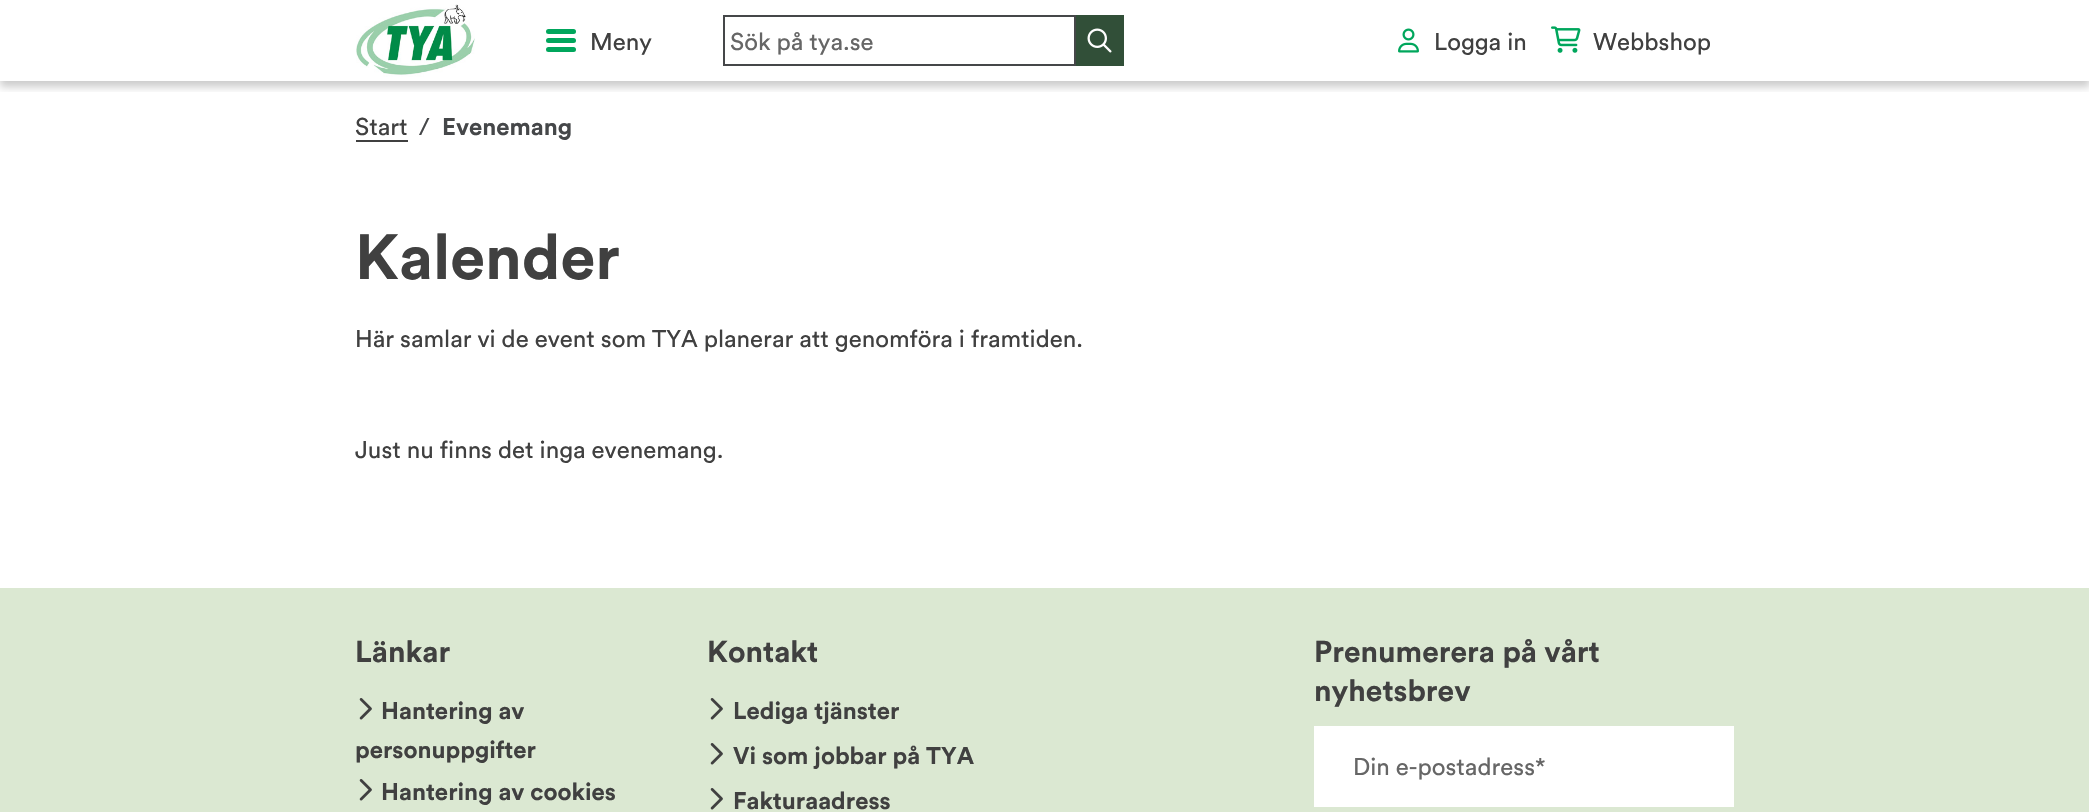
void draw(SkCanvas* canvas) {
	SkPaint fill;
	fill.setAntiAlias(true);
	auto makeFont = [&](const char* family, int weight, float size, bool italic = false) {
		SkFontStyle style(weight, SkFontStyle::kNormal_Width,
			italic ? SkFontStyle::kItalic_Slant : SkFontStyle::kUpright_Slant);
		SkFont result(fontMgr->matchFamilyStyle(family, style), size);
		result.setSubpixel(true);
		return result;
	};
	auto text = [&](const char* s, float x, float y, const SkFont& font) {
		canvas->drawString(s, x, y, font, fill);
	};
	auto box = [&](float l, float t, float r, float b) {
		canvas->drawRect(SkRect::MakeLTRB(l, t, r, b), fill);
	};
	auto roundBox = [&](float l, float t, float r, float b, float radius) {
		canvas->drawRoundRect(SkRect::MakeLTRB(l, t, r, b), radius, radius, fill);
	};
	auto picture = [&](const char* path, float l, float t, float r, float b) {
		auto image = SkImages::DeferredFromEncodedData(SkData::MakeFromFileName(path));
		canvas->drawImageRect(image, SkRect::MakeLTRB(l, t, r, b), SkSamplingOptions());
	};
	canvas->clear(0xFFFFFFFF);
	canvas->save();
	canvas->clipRect(SkRect::MakeLTRB(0, 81, 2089, 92));
	fill.setColor(0x33000000);
	fill.setMaskFilter(SkMaskFilter::MakeBlur(kNormal_SkBlurStyle, 4));
	canvas->drawRect(SkRect::MakeLTRB(0, 6, 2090, 87), fill);
	fill.setMaskFilter(nullptr);
	canvas->restore();
	picture("image0.png", 356, 4, 475, 77);
	fill.setColor(0xFF00A65C);
	roundBox(546, 38, 576, 43, 2.5f);
	roundBox(546, 29, 576, 34, 2.5f);
	roundBox(546, 47, 576, 52, 2.5f);
	fill.setStyle(SkPaint::kStroke_Style);
	fill.setStrokeWidth(2);
	fill.setColor(0xFF454749);
	canvas->drawRect(SkRect::MakeLTRB(724, 16, 1075, 65), fill);
	fill.setStyle(SkPaint::kFill_Style);
	fill.setColor(0xFF314F38);
	box(1076, 15, 1124, 66);
	picture("image1.png", 1087, 28, 1112, 53);
	picture("image2.png", 1398, 28, 1419, 53);
	picture("image3.png", 1551, 26, 1581, 53);
	fill.setColor(0xFF404040);
	box(356, 140, 408, 142);
	fill.setColor(0xFFDBE8D2);
	box(0, 588, 2089, 812);
	picture("image4.png", 359, 698, 372, 720);
	picture("image4.png", 359, 779, 372, 801);
	picture("image4.png", 710, 698, 723, 720);
	picture("image4.png", 710, 743, 723, 765);
	picture("image4.png", 710, 788, 723, 810);
	fill.setColor(0xFFFFFFFF);
	box(1314, 726, 1734, 807);
	auto font1 = makeFont("Circular", 400, 24);
	fill.setColor(0xFF404040);
	text("Meny", 590, 50, font1);
	fill.setColor(0xFF666666);
	text("Sök på tya.se", 730, 50, font1);
	fill.setColor(0xFF404040);
	text("Logga in", 1434, 50, font1);
	text("Webbshop", 1593, 50, font1);
	text("Start", 355, 135, font1);
	fill.setColor(0xFF454749);
	text("/", 419, 135, font1);
	auto font2 = makeFont("Circular", 700, 24);
	text("Evenemang", 442, 135, font2);
	auto font3 = makeFont("Circular", 700, 63);
	fill.setColor(0xFF404040);
	text("Kalender", 355, 279, font3);
	text("Här samlar vi de event som TYA planerar att genomföra i framtiden.", 355, 347, font1);
	text("Just nu finns det inga evenemang.", 355, 458, font1);
	auto font4 = makeFont("Circular", 700, 30);
	text("Länkar", 355, 662, font4);
	text("Hantering av", 381, 719, font2);
	text("personuppgifter", 355, 758, font2);
	text("Hantering av cookies", 381, 800, font2);
	text("Kontakt", 707, 662, font4);
	text("Lediga tjänster", 733, 719, font2);
	text("Vi som jobbar på TYA", 733, 764, font2);
	text("Fakturaadress", 733, 809, font2);
	text("Prenumerera på vårt", 1314, 662, font4);
	text("nyhetsbrev", 1314, 701, font4);
	fill.setColor(0xFF666666);
	text("Din e-postadress*", 1353, 775, font1);
}
